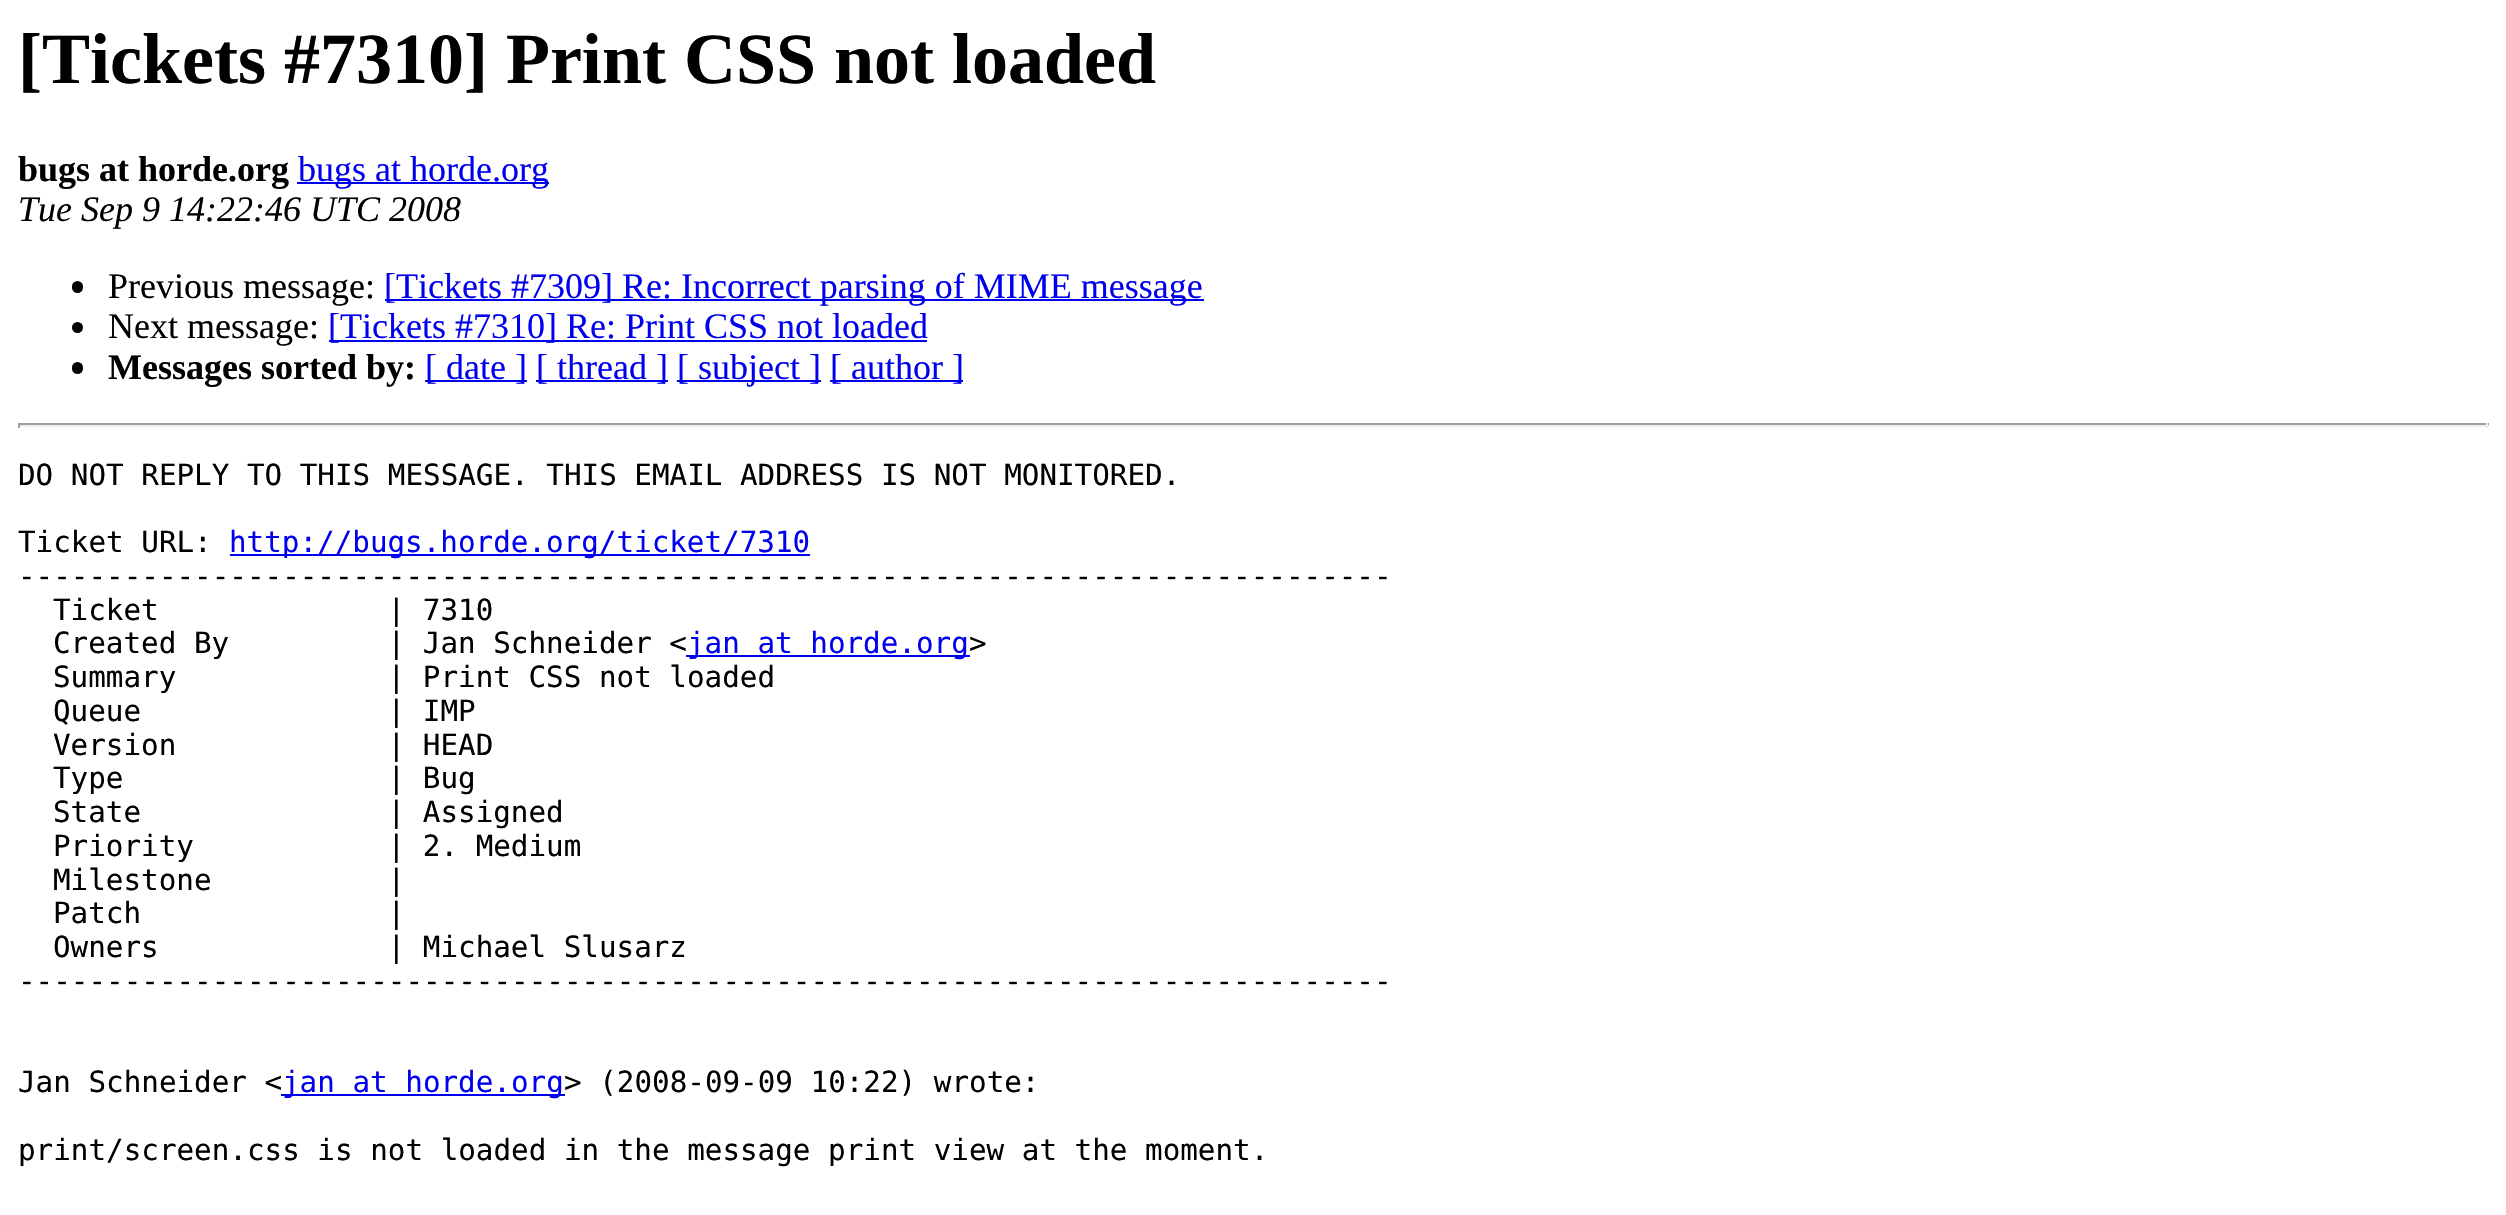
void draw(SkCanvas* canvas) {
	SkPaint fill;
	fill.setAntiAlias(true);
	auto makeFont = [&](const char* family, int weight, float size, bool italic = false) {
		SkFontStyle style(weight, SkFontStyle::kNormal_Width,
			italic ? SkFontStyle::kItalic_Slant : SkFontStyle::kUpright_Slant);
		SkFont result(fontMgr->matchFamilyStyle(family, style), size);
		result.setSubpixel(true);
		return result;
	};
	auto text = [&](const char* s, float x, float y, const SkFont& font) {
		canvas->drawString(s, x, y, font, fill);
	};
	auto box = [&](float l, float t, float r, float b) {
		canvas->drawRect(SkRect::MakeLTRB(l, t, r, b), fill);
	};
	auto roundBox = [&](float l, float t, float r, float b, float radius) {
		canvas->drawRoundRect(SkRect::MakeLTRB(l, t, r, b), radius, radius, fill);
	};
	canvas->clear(0xFFFFFFFF);
	fill.setColor(0xFF0000EE);
	box(297, 182, 549, 184);
	fill.setColor(0xFF000000);
	roundBox(72, 281, 83, 293, 5.5f);
	fill.setColor(0xFF0000EE);
	box(385, 299, 1204, 301);
	fill.setColor(0xFF000000);
	canvas->drawCircle(77.5f, 327.5f, 5.5f, fill);
	fill.setColor(0xFF0000EE);
	box(329, 340, 927, 342);
	fill.setColor(0xFF000000);
	roundBox(72, 362, 83, 374, 5.5f);
	fill.setColor(0xFF0000EE);
	box(425, 380, 527, 382);
	box(536, 380, 668, 382);
	box(677, 380, 821, 382);
	box(830, 380, 963, 382);
	fill.setColor(0xFF9F9F9F);
	box(18, 423, 2489, 425);
	fill.setColor(0xFFEEEEEE);
	box(2486, 423, 2488, 428);
	box(18, 425, 2489, 427);
	fill.setColor(0xFF9F9F9F);
	box(18, 423, 20, 428);
	fill.setColor(0xFF0000EE);
	box(230, 554, 810, 556);
	box(686, 655, 970, 657);
	box(281, 1094, 565, 1096);
	auto font1 = makeFont("Liberation Serif", 700, 72);
	fill.setColor(0xFF000000);
	text("[Tickets #7310] Print CSS not loaded", 18, 83, font1);
	auto font2 = makeFont("Liberation Serif", 700, 36);
	text("bugs at horde.org", 18, 181, font2);
	auto font3 = makeFont("Liberation Serif", 400, 36);
	fill.setColor(0xFF0000EE);
	text("bugs at horde.org", 298, 181, font3);
	auto font4 = makeFont("Liberation Serif", 400, 36, true);
	fill.setColor(0xFF000000);
	text("Tue Sep 9 14:22:46 UTC 2008", 18, 221, font4);
	text("Previous message:", 108, 298, font3);
	fill.setColor(0xFF0000EE);
	text("[Tickets #7309] Re: Incorrect parsing of MIME message", 384, 298, font3);
	fill.setColor(0xFF000000);
	text("Next message:", 108, 338, font3);
	fill.setColor(0xFF0000EE);
	text("[Tickets #7310] Re: Print CSS not loaded", 328, 338, font3);
	fill.setColor(0xFF000000);
	text("Messages sorted by:", 108, 379, font2);
	fill.setColor(0xFF0000EE);
	text("[ date ]", 425, 379, font3);
	text("[ thread ]", 536, 379, font3);
	text("[ subject ]", 677, 379, font3);
	text("[ author ]", 830, 379, font3);
	auto font5 = makeFont("DejaVu Sans Mono", 400, 29.25f);
	fill.setColor(0xFF000000);
	text("DO NOT REPLY TO THIS MESSAGE. THIS EMAIL ADDRESS IS NOT MONITORED.", 18, 485, font5);
	text("Ticket URL:", 18, 552, font5);
	fill.setColor(0xFF0000EE);
	text("http://bugs.horde.org/ticket/7310", 229, 552, font5);
	fill.setColor(0xFF000000);
	text("------------------------------------------------------------------------------", 18, 586, font5);
	text("Ticket             | 7310", 53, 620, font5);
	text("Created By         | Jan Schneider <", 53, 653, font5);
	fill.setColor(0xFF0000EE);
	text("jan at horde.org", 687, 653, font5);
	fill.setColor(0xFF000000);
	text(">", 969, 653, font5);
	text("Summary            | Print CSS not loaded", 53, 687, font5);
	text("Queue              | IMP", 53, 721, font5);
	text("Version            | HEAD", 53, 755, font5);
	text("Type               | Bug", 53, 788, font5);
	text("State              | Assigned", 53, 822, font5);
	text("Priority           | 2. Medium", 53, 856, font5);
	text("Milestone          |", 53, 890, font5);
	text("Patch              |", 53, 923, font5);
	text("Owners             | Michael Slusarz", 53, 957, font5);
	text("------------------------------------------------------------------------------", 18, 991, font5);
	text("Jan Schneider <", 18, 1092, font5);
	fill.setColor(0xFF0000EE);
	text("jan at horde.org", 282, 1092, font5);
	fill.setColor(0xFF000000);
	text("> (2008-09-09 10:22) wrote:", 564, 1092, font5);
	text("print/screen.css is not loaded in the message print view at the moment.", 18, 1160, font5);
}
